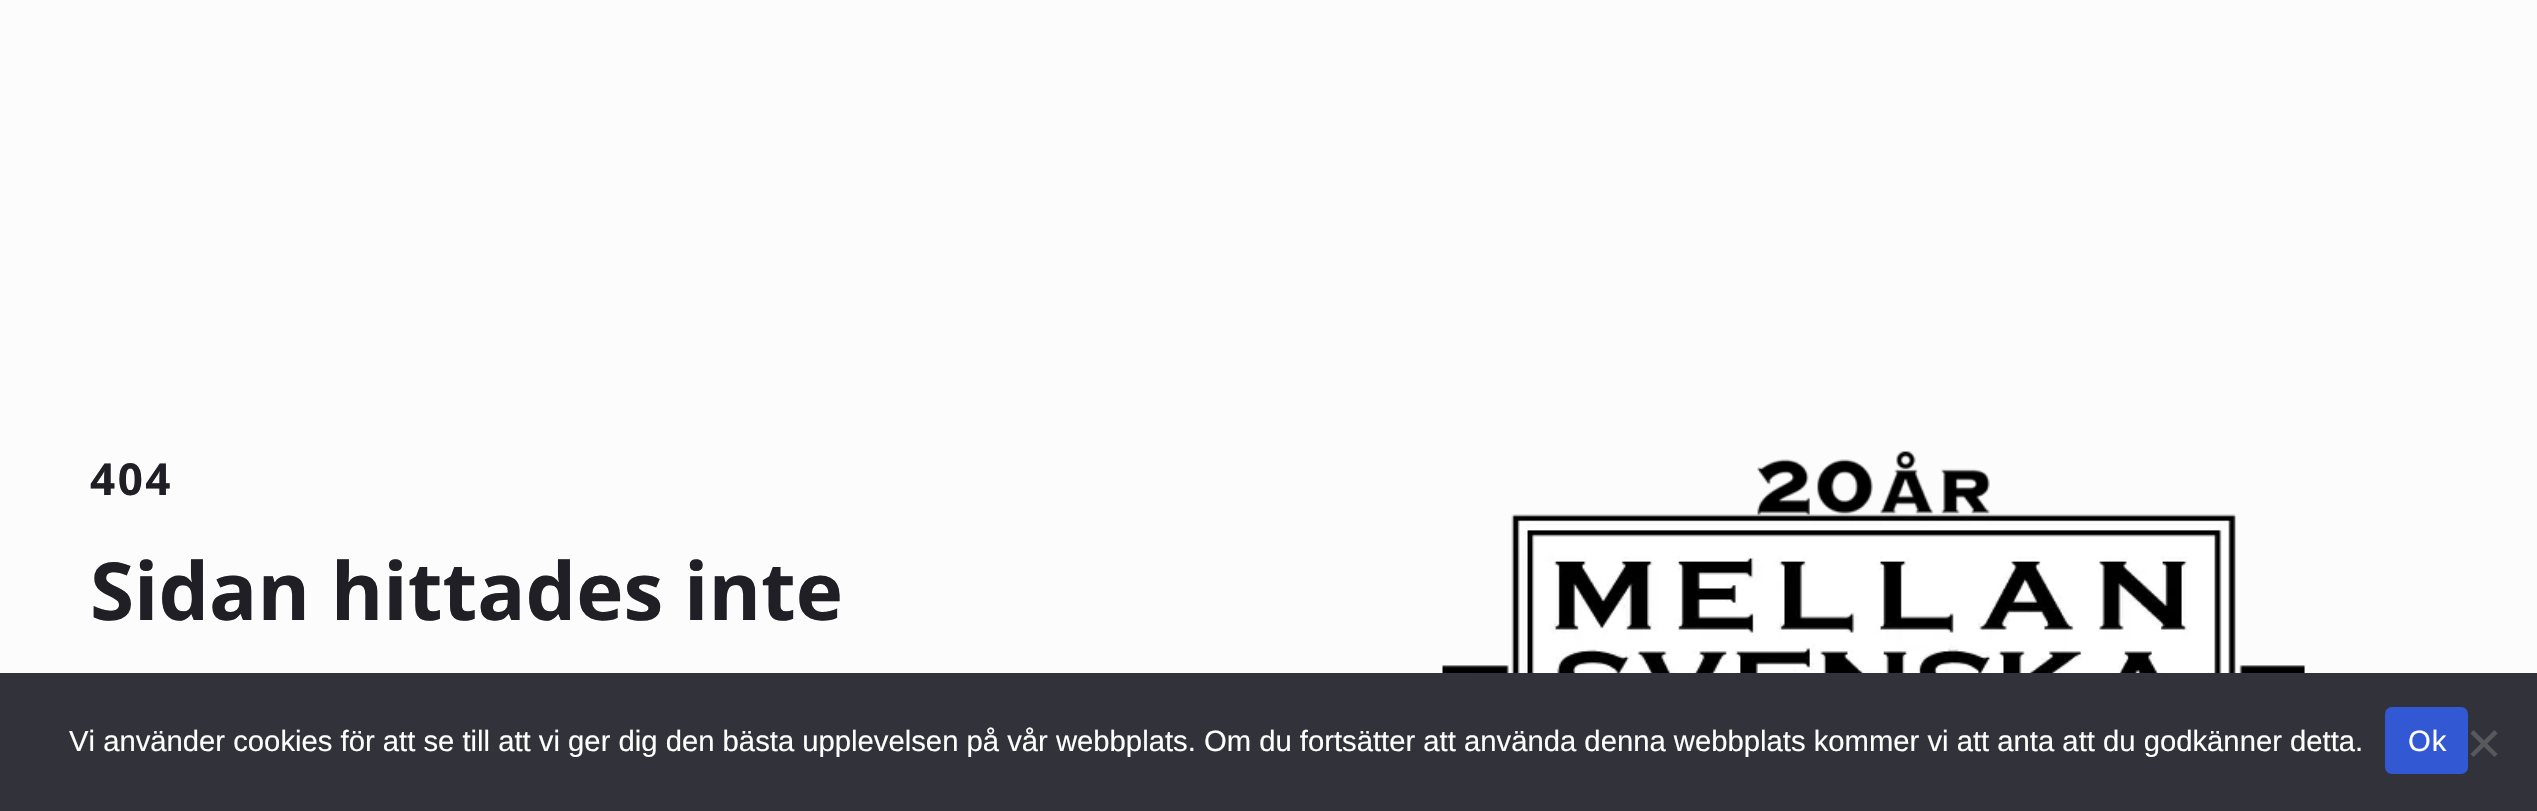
void draw(SkCanvas* canvas) {
	SkPaint fill;
	fill.setAntiAlias(true);
	auto makeFont = [&](const char* family, int weight, float size, bool italic = false) {
		SkFontStyle style(weight, SkFontStyle::kNormal_Width,
			italic ? SkFontStyle::kItalic_Slant : SkFontStyle::kUpright_Slant);
		SkFont result(fontMgr->matchFamilyStyle(family, style), size);
		result.setSubpixel(true);
		return result;
	};
	auto text = [&](const char* s, float x, float y, const SkFont& font) {
		canvas->drawString(s, x, y, font, fill);
	};
	auto spacedText = [&](const char* s, float x, float y, const SkFont& font, const SkPaint& ink, float letter, float word) {
		std::vector<SkGlyphID> glyphs(font.countText(s, strlen(s), SkTextEncoding::kUTF8));
		std::vector<float> xs(glyphs.size());
		font.textToGlyphs(s, strlen(s), SkTextEncoding::kUTF8, glyphs);
		font.getXPos(glyphs, xs, x);
		float extra = 0;
		for (size_t i = 0; i < glyphs.size(); i++) {
			xs[i] += extra;
			extra += letter + word * (glyphs[i] == font.unicharToGlyph(' '));
		}
		canvas->drawTextBlob(SkTextBlob::MakeFromPosHGlyphs(glyphs, xs, y, font), 0, 0, ink);
	};
	auto box = [&](float l, float t, float r, float b) {
		canvas->drawRect(SkRect::MakeLTRB(l, t, r, b), fill);
	};
	auto roundBox = [&](float l, float t, float r, float b, float radius) {
		canvas->drawRoundRect(SkRect::MakeLTRB(l, t, r, b), radius, radius, fill);
	};
	auto picture = [&](const char* path, float l, float t, float r, float b) {
		auto image = SkImages::DeferredFromEncodedData(SkData::MakeFromFileName(path));
		canvas->drawImageRect(image, SkRect::MakeLTRB(l, t, r, b), SkSamplingOptions());
	};
	canvas->clear(0xFFFDFCFD);
	picture("image0.png", 1442, 451, 2305, 673);
	fill.setColor(0xFF32323A);
	box(0, 673, 2537, 811);
	fill.setColor(0xFF3358D4);
	roundBox(2385, 707, 2468, 774, 7);
	fill.setColor(0xFF59595D);
	canvas->drawPath(SkPathBuilder().moveTo(2494.5f, 730).lineTo(2497.5f, 733.5f).lineTo(2473.5f, 757).lineTo(2470.5f, 754).close().detach(), fill);
	canvas->drawPath(SkPathBuilder().moveTo(2470.5f, 733.5f).lineTo(2473.5f, 730).lineTo(2497.5f, 754).lineTo(2494.5f, 757).close().detach(), fill);
	auto font1 = makeFont("Open Sans", 700, 44);
	fill.setColor(0xFF211F26);
	spacedText("404", 90, 495, font1, fill, 2.5f, 0);
	auto font2 = makeFont("Open Sans", 700, 80);
	text("Sidan hittades inte", 90, 620, font2);
	auto font3 = makeFont("Liberation Sans", 400, 29.25f);
	fill.setColor(0xFFFFFFFF);
	text("Vi använder cookies för att se till att vi ger dig den bästa upplevelsen på vår webbplats. Om du fortsätter att använda denna webbplats kommer vi att anta att du godkänner detta.", 69, 751, font3);
	spacedText("Ok", 2408, 751, font3, fill, 1, 0);
}
